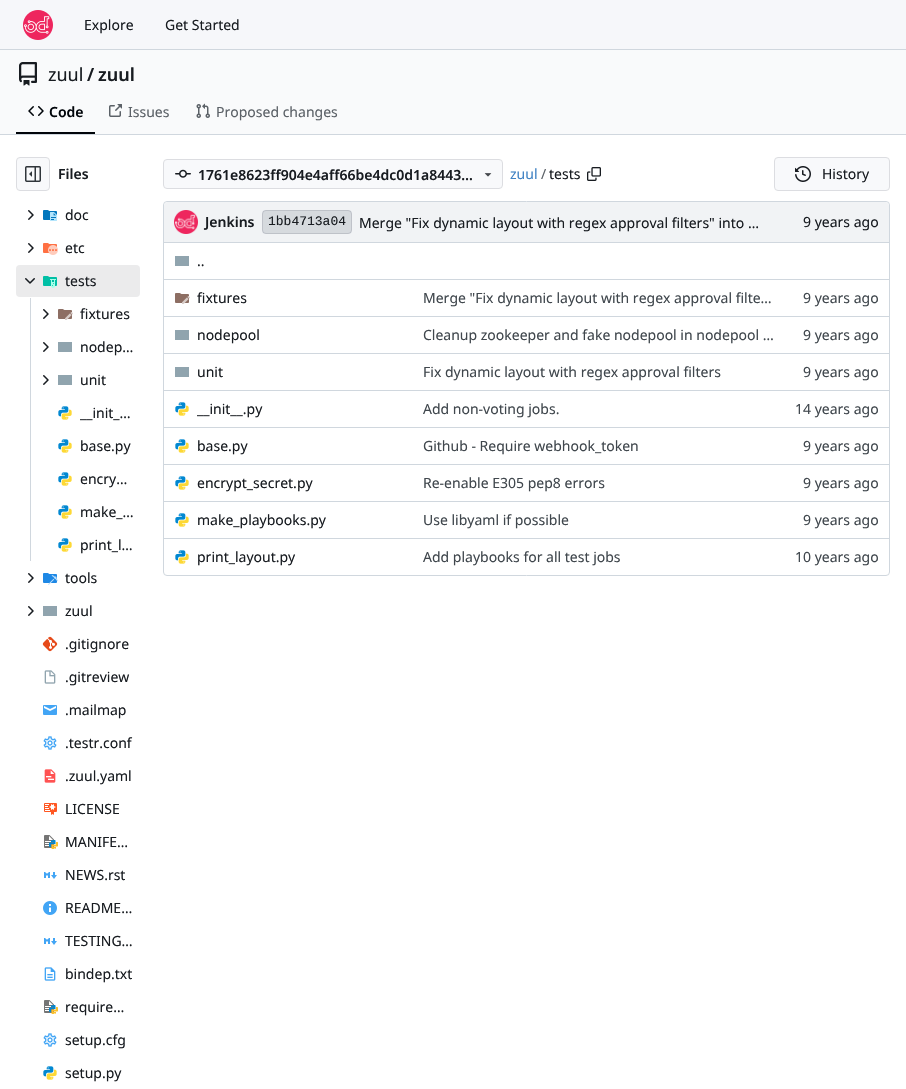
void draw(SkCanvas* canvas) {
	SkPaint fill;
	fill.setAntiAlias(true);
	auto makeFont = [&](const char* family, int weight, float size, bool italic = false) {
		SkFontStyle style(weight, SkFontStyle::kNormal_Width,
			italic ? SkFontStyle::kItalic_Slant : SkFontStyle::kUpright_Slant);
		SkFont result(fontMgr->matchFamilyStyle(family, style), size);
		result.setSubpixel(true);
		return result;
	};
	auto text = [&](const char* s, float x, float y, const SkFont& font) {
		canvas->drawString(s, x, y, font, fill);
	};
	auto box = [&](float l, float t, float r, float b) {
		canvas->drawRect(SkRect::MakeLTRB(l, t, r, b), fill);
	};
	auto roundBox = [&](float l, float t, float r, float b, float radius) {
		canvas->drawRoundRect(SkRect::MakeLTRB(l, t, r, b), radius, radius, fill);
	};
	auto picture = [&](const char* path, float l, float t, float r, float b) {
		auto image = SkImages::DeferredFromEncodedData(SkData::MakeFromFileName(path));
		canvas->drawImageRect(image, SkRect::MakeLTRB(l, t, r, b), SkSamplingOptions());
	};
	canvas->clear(0xFFFFFFFF);
	fill.setColor(0xFFF6F7FA);
	box(0, 0, 906, 49);
	fill.setColor(0xFFD0D7DE);
	box(0, 49, 906, 50);
	picture("image0.png", 23, 10, 53, 40);
	fill.setColor(0xFFF9FAFB);
	box(0, 50, 906, 134);
	picture("image1.png", 19, 62, 37, 86);
	fill.setColor(0xFF01050A);
	box(16, 132, 95, 134);
	picture("image2.png", 28, 106, 44, 116);
	picture("image3.png", 109, 104, 122, 117);
	picture("image4.png", 196, 103, 210, 118);
	fill.setColor(0xFFD0D7DE);
	box(0, 134, 906, 135);
	fill.setColor(0xFFF8F9FB);
	canvas->drawRoundRect(SkRect::MakeLTRB(16.5f, 157.5f, 49.5f, 190.5f), 3.5f, 3.5f, fill);
	fill.setStyle(SkPaint::kStroke_Style);
	fill.setStrokeWidth(1);
	fill.setColor(0xFFDCDDE1);
	canvas->drawRoundRect(SkRect::MakeLTRB(16.5f, 157.5f, 49.5f, 190.5f), 3.5f, 3.5f, fill);
	picture("image5.png", 25, 166, 41, 182);
	picture("image6.png", 28, 210, 34, 220);
	picture("image7.png", 43, 210, 57, 221);
	picture("image6.png", 28, 243, 34, 253);
	picture("image8.png", 43, 243, 58, 255);
	fill.setStyle(SkPaint::kFill_Style);
	fill.setColor(0xFFEBEBEC);
	roundBox(16, 265, 140, 297, 4);
	picture("image9.png", 25, 278, 35, 284);
	picture("image10.png", 43, 276, 57, 288);
	fill.setColor(0xFFD0D7DE);
	box(30, 298, 31, 561);
	picture("image6.png", 43, 309, 49, 319);
	picture("image11.png", 58, 309, 73, 320);
	picture("image6.png", 43, 342, 49, 352);
	fill.setColor(0xFF90A4AE);
	box(58, 342, 72, 352);
	picture("image6.png", 43, 375, 49, 385);
	box(58, 375, 72, 385);
	picture("image12.png", 58, 406, 72, 420);
	picture("image12.png", 58, 439, 72, 453);
	picture("image12.png", 58, 472, 72, 486);
	picture("image12.png", 58, 505, 72, 519);
	picture("image12.png", 58, 538, 72, 552);
	picture("image6.png", 28, 573, 34, 583);
	picture("image13.png", 43, 573, 58, 585);
	picture("image6.png", 28, 606, 34, 616);
	box(43, 606, 57, 616);
	picture("image14.png", 42, 636, 58, 652);
	picture("image15.png", 44, 670, 56, 684);
	picture("image16.png", 43, 705, 57, 715);
	picture("image17.png", 43, 736, 57, 750);
	picture("image18.png", 44, 769, 56, 783);
	picture("image19.png", 44, 803, 57, 815);
	picture("image20.png", 44, 835, 58, 849);
	picture("image21.png", 44, 872, 57, 879);
	picture("image22.png", 43, 901, 57, 915);
	picture("image21.png", 44, 938, 57, 945);
	picture("image23.png", 44, 967, 56, 981);
	picture("image20.png", 44, 1000, 58, 1014);
	picture("image17.png", 43, 1033, 57, 1047);
	picture("image12.png", 43, 1066, 57, 1080);
	fill.setColor(0xFFF8F9FB);
	canvas->drawRoundRect(SkRect::MakeLTRB(163.5f, 159.5f, 502.5f, 188.5f), 3.5f, 3.5f, fill);
	fill.setStyle(SkPaint::kStroke_Style);
	fill.setColor(0xFFDCDDE1);
	canvas->drawRoundRect(SkRect::MakeLTRB(163.5f, 159.5f, 502.5f, 188.5f), 3.5f, 3.5f, fill);
	picture("image24.png", 175, 169, 191, 178);
	picture("image25.png", 484, 173, 492, 177);
	picture("image26.png", 587, 167, 601, 181);
	fill.setStyle(SkPaint::kFill_Style);
	fill.setColor(0xFFF8F9FB);
	canvas->drawRoundRect(SkRect::MakeLTRB(774.5f, 157.5f, 889.5f, 190.5f), 3.5f, 3.5f, fill);
	fill.setStyle(SkPaint::kStroke_Style);
	fill.setColor(0xFFDCDDE1);
	canvas->drawRoundRect(SkRect::MakeLTRB(774.5f, 157.5f, 889.5f, 190.5f), 3.5f, 3.5f, fill);
	picture("image27.png", 795, 166, 811, 182);
	fill.setColor(0xFFD0D7DE);
	canvas->drawRoundRect(SkRect::MakeLTRB(163.5f, 201.5f, 889.5f, 575.5f), 3.5f, 3.5f, fill);
	fill.setStyle(SkPaint::kFill_Style);
	fill.setColor(0xFFF1F3F5);
	canvas->drawPath(SkPathBuilder().moveTo(168, 202).lineTo(885, 202).cubicTo(887, 202, 889, 204, 889, 206).lineTo(889, 242).lineTo(164, 242).lineTo(164, 206).cubicTo(164, 204, 166, 202, 168, 202).close().detach(), fill);
	picture("image28.png", 174, 210, 198, 234);
	fill.setColor(0xFFD6DADE);
	roundBox(262, 210, 352, 234, 4);
	fill.setStyle(SkPaint::kStroke_Style);
	fill.setColor(0x1C000017);
	canvas->drawRoundRect(SkRect::MakeLTRB(262.5f, 210.5f, 351.5f, 233.5f), 3.5f, 3.5f, fill);
	fill.setStyle(SkPaint::kFill_Style);
	fill.setColor(0xFFD0D7DE);
	box(164, 242, 889, 243);
	fill.setColor(0xFF90A4AE);
	box(175, 256, 189, 266);
	fill.setColor(0xFFD0D7DE);
	box(164, 279, 785, 280);
	picture("image11.png", 175, 293, 190, 304);
	box(785, 279, 889, 280);
	box(164, 316, 785, 317);
	fill.setColor(0xFF90A4AE);
	box(175, 330, 189, 340);
	fill.setColor(0xFFD0D7DE);
	box(785, 316, 889, 317);
	box(164, 353, 785, 354);
	fill.setColor(0xFF90A4AE);
	box(175, 367, 189, 377);
	fill.setColor(0xFFD0D7DE);
	box(785, 353, 889, 354);
	box(164, 390, 785, 391);
	picture("image12.png", 175, 402, 189, 416);
	box(785, 390, 889, 391);
	box(164, 427, 785, 428);
	picture("image12.png", 175, 439, 189, 453);
	box(785, 427, 889, 428);
	box(164, 464, 785, 465);
	picture("image12.png", 175, 476, 189, 490);
	box(785, 464, 889, 465);
	box(164, 501, 785, 502);
	picture("image12.png", 175, 513, 189, 527);
	box(785, 501, 889, 502);
	box(164, 538, 785, 539);
	picture("image12.png", 175, 550, 189, 564);
	box(785, 538, 889, 539);
	auto font1 = makeFont("Noto Sans", 400, 14);
	fill.setColor(0xFF181C21);
	text("Explore", 84, 30, font1);
	text("Get Started", 165, 30, font1);
	auto font2 = makeFont("Noto Sans", 400, 18);
	text("zuul", 48, 81, font2);
	auto font3 = makeFont("Noto Sans", 600, 18);
	text("/", 87, 81, font3);
	text("zuul", 98, 81, font3);
	auto font4 = makeFont("Noto Sans", 600, 14);
	fill.setColor(0xFF01050A);
	text("Code", 49, 117, font4);
	fill.setColor(0xFF5B6167);
	text("Issues", 128, 117, font1);
	text("Proposed changes", 216, 117, font1);
	fill.setColor(0xFF181C21);
	text("Files", 58, 179, font4);
	text("doc", 65, 220, font1);
	text("etc", 65, 253, font1);
	text("tests", 65, 286, font1);
	text("fixtures", 80, 319, font1);
	text("nodep…", 80, 352, font1);
	text("unit", 80, 385, font1);
	text("__init_…", 80, 418, font1);
	text("base.py", 80, 451, font1);
	text("encry…", 80, 484, font1);
	text("make_…", 80, 517, font1);
	text("print_l…", 80, 550, font1);
	text("tools", 65, 583, font1);
	text("zuul", 65, 616, font1);
	text(".gitignore", 65, 649, font1);
	text(".gitreview", 65, 682, font1);
	text(".mailmap", 65, 715, font1);
	text(".testr.conf", 65, 748, font1);
	text(".zuul.yaml", 65, 781, font1);
	text("LICENSE", 65, 814, font1);
	text("MANIFE…", 65, 847, font1);
	text("NEWS.rst", 65, 880, font1);
	text("README…", 65, 913, font1);
	text("TESTING…", 65, 946, font1);
	text("bindep.txt", 65, 979, font1);
	text("require…", 65, 1012, font1);
	text("setup.cfg", 65, 1045, font1);
	text("setup.py", 65, 1078, font1);
	text("1761e8623ff904e4aff66be4dc0d1a8443…", 198, 180, font4);
	fill.setColor(0xFF4183C4);
	text("zuul", 510, 179, font1);
	fill.setColor(0xFF5B6167);
	text("/", 541, 179, font1);
	fill.setColor(0xFF181C21);
	text("tests", 549, 179, font1);
	text("History", 822, 179, font1);
	text("Jenkins", 205, 227, font4);
	auto font5 = makeFont("Liberation Mono", 400, 13);
	text("1bb4713a04", 268, 225, font5);
	text("Merge \"Fix dynamic layout with regex approval filters\" into …", 359, 228, font1);
	text("9 years ago", 803, 227, font1);
	text("..", 197, 266, font1);
	text("fixtures", 197, 303, font1);
	fill.setColor(0xFF40474D);
	text("Merge \"Fix dynamic layout with regex approval filte…", 423, 303, font1);
	text("9 years ago", 803, 303, font1);
	fill.setColor(0xFF181C21);
	text("nodepool", 197, 340, font1);
	fill.setColor(0xFF40474D);
	text("Cleanup zookeeper and fake nodepool in nodepool …", 423, 340, font1);
	text("9 years ago", 803, 340, font1);
	fill.setColor(0xFF181C21);
	text("unit", 197, 377, font1);
	fill.setColor(0xFF40474D);
	text("Fix dynamic layout with regex approval filters", 423, 377, font1);
	text("9 years ago", 803, 377, font1);
	fill.setColor(0xFF181C21);
	text("__init__.py", 197, 414, font1);
	fill.setColor(0xFF40474D);
	text("Add non-voting jobs.", 423, 414, font1);
	text("14 years ago", 795, 414, font1);
	fill.setColor(0xFF181C21);
	text("base.py", 197, 451, font1);
	fill.setColor(0xFF40474D);
	text("Github - Require webhook_token", 423, 451, font1);
	text("9 years ago", 803, 451, font1);
	fill.setColor(0xFF181C21);
	text("encrypt_secret.py", 197, 488, font1);
	fill.setColor(0xFF40474D);
	text("Re-enable E305 pep8 errors", 423, 488, font1);
	text("9 years ago", 803, 488, font1);
	fill.setColor(0xFF181C21);
	text("make_playbooks.py", 197, 525, font1);
	fill.setColor(0xFF40474D);
	text("Use libyaml if possible", 423, 525, font1);
	text("9 years ago", 803, 525, font1);
	fill.setColor(0xFF181C21);
	text("print_layout.py", 197, 562, font1);
	fill.setColor(0xFF40474D);
	text("Add playbooks for all test jobs", 423, 562, font1);
	text("10 years ago", 795, 562, font1);
}
